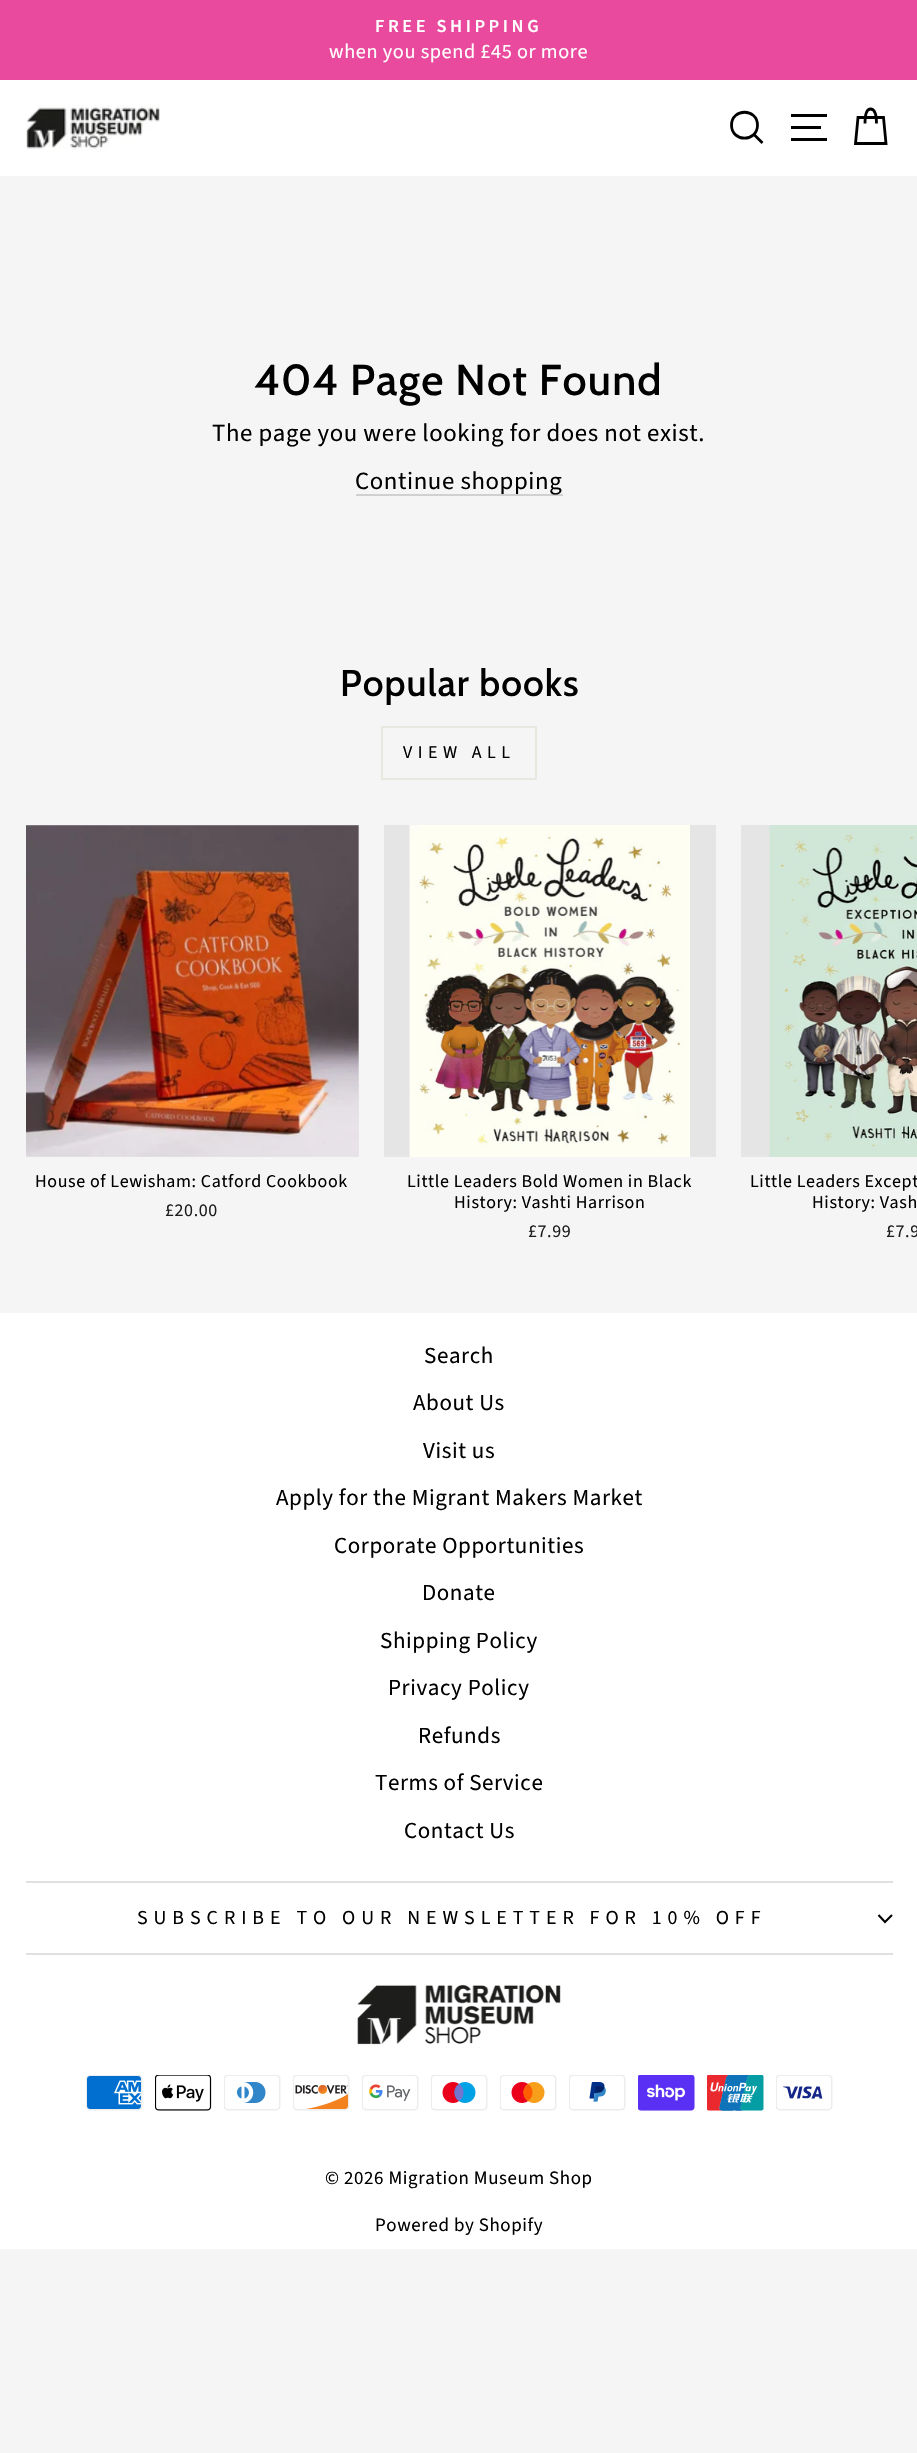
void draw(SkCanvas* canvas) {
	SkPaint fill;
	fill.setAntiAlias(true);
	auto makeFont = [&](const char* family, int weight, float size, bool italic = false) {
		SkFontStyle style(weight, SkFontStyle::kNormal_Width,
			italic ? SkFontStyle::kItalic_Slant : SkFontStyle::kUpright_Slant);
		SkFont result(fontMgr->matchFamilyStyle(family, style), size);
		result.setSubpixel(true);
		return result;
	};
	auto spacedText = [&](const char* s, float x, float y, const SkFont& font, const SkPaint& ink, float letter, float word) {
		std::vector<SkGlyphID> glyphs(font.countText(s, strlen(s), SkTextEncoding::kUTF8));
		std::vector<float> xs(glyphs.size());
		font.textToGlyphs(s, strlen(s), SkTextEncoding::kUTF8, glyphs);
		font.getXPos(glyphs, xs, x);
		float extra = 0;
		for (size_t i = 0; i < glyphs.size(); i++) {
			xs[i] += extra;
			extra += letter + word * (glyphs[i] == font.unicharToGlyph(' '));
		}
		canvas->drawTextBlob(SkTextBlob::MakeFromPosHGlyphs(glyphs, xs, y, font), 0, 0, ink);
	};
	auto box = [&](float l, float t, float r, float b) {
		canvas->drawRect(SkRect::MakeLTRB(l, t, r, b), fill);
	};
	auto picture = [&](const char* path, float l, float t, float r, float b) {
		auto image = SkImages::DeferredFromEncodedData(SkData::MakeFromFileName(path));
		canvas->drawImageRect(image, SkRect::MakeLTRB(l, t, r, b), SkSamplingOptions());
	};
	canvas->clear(0xFFF5F5F5);
	fill.setColor(0xFFE94A9E);
	box(0, 0, 917, 80);
	fill.setColor(0xFFFFFFFF);
	box(0, 80, 917, 176);
	picture("image0.png", 26, 105, 160, 150);
	fill.setStyle(SkPaint::kStroke_Style);
	fill.setStrokeWidth(2.8f);
	fill.setColor(0xFF000000);
	canvas->drawPath(SkPathBuilder().moveTo(757.5f, 125).cubicTo(757.5f, 142.5f, 731.5f, 142.5f, 731.5f, 125).cubicTo(731.5f, 108, 757.5f, 108, 757.5f, 125).close().moveTo(762.5f, 143).lineTo(754, 134.5f).detach(), fill);
	canvas->drawPath(SkPathBuilder().moveTo(791, 115.5f).lineTo(827, 115.5f).moveTo(791, 127.5f).lineTo(821, 127.5f).moveTo(791, 139.5f).lineTo(827, 139.5f).detach(), fill);
	canvas->drawPath(SkPathBuilder().moveTo(865, 123.5f).cubicTo(865, 112, 867.5f, 109, 870.5f, 109).cubicTo(874, 109, 876.5f, 112, 876.5f, 123.5f).moveTo(858, 117.5f).lineTo(883.5f, 117.5f).lineTo(886, 143.5f).lineTo(855.5f, 143.5f).close().detach(), fill);
	fill.setStyle(SkPaint::kFill_Style);
	fill.setColor(0xFFD0D0D0);
	box(356, 494, 563, 496);
	fill.setStyle(SkPaint::kStroke_Style);
	fill.setStrokeWidth(2);
	fill.setColor(0xFFE8E8E1);
	canvas->drawRect(SkRect::MakeLTRB(382, 727, 536, 779), fill);
	fill.setStyle(SkPaint::kFill_Style);
	fill.setColor(0xFFE5E5E5);
	box(26, 825, 359, 1157);
	picture("image1.png", 26, 825, 359, 1157);
	box(384, 825, 716, 1157);
	picture("image2.png", 409, 825, 690, 1157);
	box(741, 825, 917, 1157);
	picture("image3.png", 769, 825, 917, 1157);
	fill.setColor(0xFFFFFFFF);
	box(0, 1313, 917, 2249);
	fill.setColor(0xFFE0E0E0);
	box(26, 1881, 893, 1883);
	fill.setStyle(SkPaint::kStroke_Style);
	fill.setStrokeWidth(2.1f);
	fill.setColor(0xFF000000);
	canvas->drawPath(SkPathBuilder().moveTo(878.5f, 1915).lineTo(885, 1922).lineTo(892, 1915).detach(), fill);
	fill.setStyle(SkPaint::kFill_Style);
	fill.setColor(0xFFE0E0E0);
	box(26, 1953, 893, 1955);
	picture("image4.png", 357, 1984, 561, 2048);
	picture("image5.png", 86, 2075, 143, 2111);
	picture("image6.png", 155, 2075, 212, 2111);
	picture("image7.png", 224, 2075, 281, 2111);
	picture("image8.png", 293, 2075, 350, 2111);
	picture("image9.png", 362, 2075, 419, 2111);
	picture("image10.png", 431, 2075, 488, 2111);
	picture("image11.png", 500, 2075, 557, 2111);
	picture("image12.png", 569, 2075, 626, 2111);
	picture("image13.png", 638, 2075, 695, 2111);
	picture("image14.png", 707, 2075, 764, 2111);
	picture("image15.png", 776, 2075, 833, 2111);
	auto font1 = makeFont("Source Sans Pro", 600, 18.25f);
	fill.setColor(0xFFFFFFFF);
	spacedText("FREE SHIPPING", 375, 32, font1, fill, 3.6f, 0);
	auto font2 = makeFont("Source Sans Pro", 400, 20.25f);
	spacedText("when you spend £45 or more", 329, 58, font2, fill, 0.6f, 0);
	auto font3 = makeFont("Cabin", 500, 43.25f);
	fill.setColor(0xFF000000);
	spacedText("404 Page Not Found", 254, 395, font3, fill, 1.1f, 0);
	auto font4 = makeFont("Source Sans Pro", 400, 24.8f);
	spacedText("The page you were looking for does not exist.", 212, 441, font4, fill, 0.6f, 0);
	spacedText("Continue shopping", 355, 489, font4, fill, 0.6f, 0);
	auto font5 = makeFont("Cabin", 500, 37.25f);
	spacedText("Popular books", 340, 696, font5, fill, 1, 0);
	auto font6 = makeFont("Source Sans Pro", 400, 18);
	spacedText("VIEW ALL", 403, 758, font6, fill, 5.5f, 0);
	spacedText("House of Lewisham: Catford Cookbook", 35, 1187, font6, fill, 0.6f, 0);
	fill.setColor(0xFF1C1D1D);
	spacedText("£20.00", 165, 1216, font6, fill, 0.6f, 0);
	fill.setColor(0xFF000000);
	spacedText("Little Leaders Bold Women in Black", 407, 1187, font6, fill, 0.6f, 0);
	spacedText("History: Vashti Harrison", 454, 1208, font6, fill, 0.6f, 0);
	fill.setColor(0xFF1C1D1D);
	spacedText("£7.99", 528, 1237, font6, fill, 0.6f, 0);
	fill.setColor(0xFF000000);
	spacedText("Little Leaders Except", 750, 1187, font6, fill, 0.6f, 0);
	spacedText("History: Vash", 812, 1208, font6, fill, 0.6f, 0);
	fill.setColor(0xFF1C1D1D);
	spacedText("£7.9", 886, 1237, font6, fill, 0.6f, 0);
	auto font7 = makeFont("Source Sans Pro", 400, 23);
	fill.setColor(0xFF000000);
	spacedText("Search", 424, 1363, font7, fill, 0.6f, 0);
	spacedText("About Us", 413, 1410, font7, fill, 0.6f, 0);
	spacedText("Visit us", 423, 1458, font7, fill, 0.6f, 0);
	spacedText("Apply for the Migrant Makers Market", 276, 1505, font7, fill, 0.6f, 0);
	spacedText("Corporate Opportunities", 334, 1553, font7, fill, 0.6f, 0);
	spacedText("Donate", 422, 1600, font7, fill, 0.6f, 0);
	spacedText("Shipping Policy", 380, 1648, font7, fill, 0.6f, 0);
	spacedText("Privacy Policy", 388, 1695, font7, fill, 0.6f, 0);
	spacedText("Refunds", 418, 1743, font7, fill, 0.6f, 0);
	spacedText("Terms of Service", 375, 1790, font7, fill, 0.6f, 0);
	spacedText("Contact Us", 404, 1838, font7, fill, 0.6f, 0);
	auto font8 = makeFont("Source Sans Pro", 400, 19.9f);
	spacedText("SUBSCRIBE TO OUR NEWSLETTER FOR 10% OFF", 137, 1924, font8, fill, 5.95f, 0);
	auto font9 = makeFont("Source Sans Pro", 400, 18.9f);
	spacedText("© 2026 Migration Museum Shop", 325, 2184, font9, fill, 0.6f, 0);
	spacedText("Powered by Shopify", 375, 2231, font9, fill, 0.6f, 0);
}
